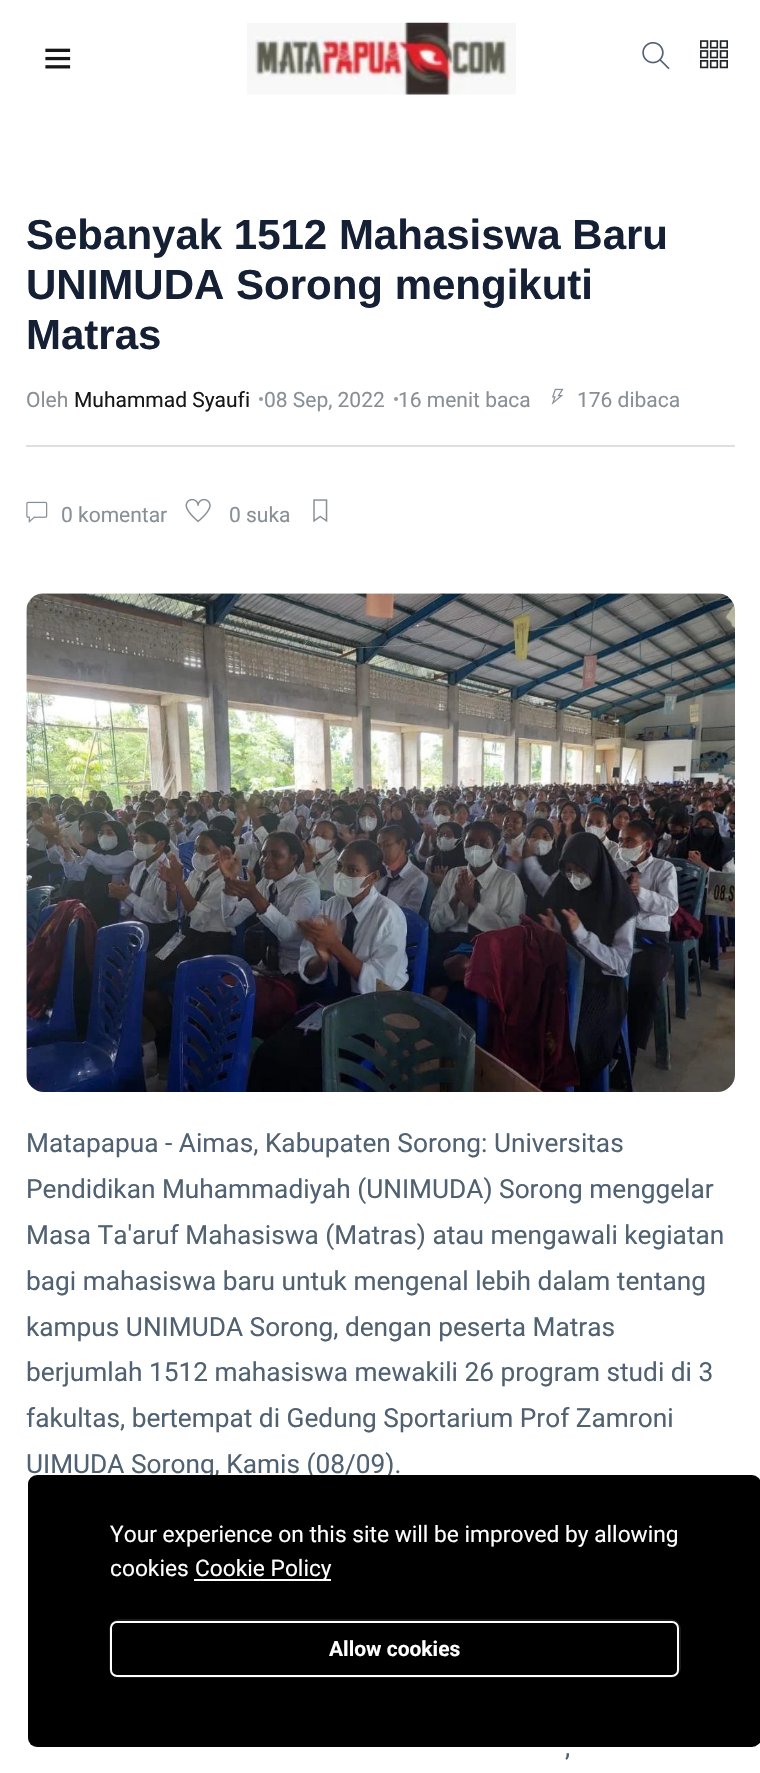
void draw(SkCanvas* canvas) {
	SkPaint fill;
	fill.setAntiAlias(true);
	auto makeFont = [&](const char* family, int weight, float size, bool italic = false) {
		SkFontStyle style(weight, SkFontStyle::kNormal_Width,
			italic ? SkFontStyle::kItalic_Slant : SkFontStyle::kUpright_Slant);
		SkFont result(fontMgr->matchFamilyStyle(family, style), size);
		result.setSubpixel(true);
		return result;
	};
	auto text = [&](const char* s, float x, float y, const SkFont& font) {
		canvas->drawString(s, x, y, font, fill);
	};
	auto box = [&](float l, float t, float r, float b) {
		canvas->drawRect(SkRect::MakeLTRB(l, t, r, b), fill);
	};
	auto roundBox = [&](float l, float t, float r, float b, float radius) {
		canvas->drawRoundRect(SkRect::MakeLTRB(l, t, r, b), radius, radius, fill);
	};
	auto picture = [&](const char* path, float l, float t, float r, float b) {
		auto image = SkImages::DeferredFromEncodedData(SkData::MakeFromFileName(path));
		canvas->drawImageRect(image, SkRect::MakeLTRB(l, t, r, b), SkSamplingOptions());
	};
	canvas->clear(0xFFFFFFFF);
	picture("image0.png", 45, 48, 71, 69);
	picture("image1.png", 247, 22, 516, 95);
	picture("image2.png", 642, 42, 670, 70);
	picture("image3.png", 700, 40, 728, 69);
	fill.setColor(0xFF999999);
	canvas->drawCircle(261, 399, 2, fill);
	canvas->drawCircle(396, 399, 2, fill);
	picture("image4.png", 551, 388, 564, 405);
	fill.setColor(0xFFE0DEDE);
	box(26, 445, 735, 447);
	picture("image5.png", 26, 501, 48, 523);
	picture("image6.png", 185, 498, 211, 523);
	picture("image7.png", 313, 499, 328, 523);
	picture("image8.png", 26, 593, 735, 1092);
	auto font1 = makeFont("Arimo", 700, 42);
	fill.setColor(0xFF152035);
	text("Sebanyak 1512 Mahasiswa Baru", 26, 249, font1);
	text("UNIMUDA Sorong mengikuti", 26, 299, font1);
	text("Matras", 26, 349, font1);
	auto font2 = makeFont("Roboto", 400, 21);
	fill.setColor(0xFF889097);
	text("Oleh", 26, 407, font2);
	fill.setColor(0xFF171616);
	text("Muhammad Syaufi", 74, 407, font2);
	fill.setColor(0xFF889097);
	text("08 Sep, 2022", 264, 407, font2);
	text("16 menit baca", 398, 407, font2);
	text("176 dibaca", 577, 407, font2);
	text("0 komentar", 61, 522, font2);
	text("0 suka", 229, 522, font2);
	auto font3 = makeFont("Roboto", 400, 26.25f);
	fill.setColor(0xFF506172);
	text("Matapapua - Aimas, Kabupaten Sorong: Universitas", 26, 1152, font3);
	text("Pendidikan Muhammadiyah (UNIMUDA) Sorong menggelar", 26, 1198, font3);
	text("Masa Ta'aruf Mahasiswa (Matras) atau mengawali kegiatan", 26, 1244, font3);
	text("bagi mahasiswa baru untuk mengenal lebih dalam tentang", 26, 1290, font3);
	text("kampus UNIMUDA Sorong, dengan peserta Matras", 26, 1336, font3);
	text("berjumlah 1512 mahasiswa mewakili 26 program studi di 3", 26, 1381, font3);
	text("fakultas, bertempat di Gedung Sportarium Prof Zamroni", 26, 1427, font3);
	text("UIMUDA Sorong, Kamis (08/09).", 26, 1473, font3);
	text(",", 565, 1756, font3);
	fill.setColor(0xFF000000);
	roundBox(28, 1475, 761, 1747, 9);
	auto font4 = makeFont("Roboto", 400, 22.75f);
	fill.setColor(0xFFFFFFFF);
	text("Your experience on this site will be improved by allowing", 110, 1542, font4);
	text("cookies", 110, 1576, font4);
	box(194, 1579, 331, 1581);
	text("Cookie Policy", 195, 1576, font4);
	fill.setColor(0xFF1A1A1A);
	roundBox(109, 1619, 681, 1678, 11);
	fill.setColor(0xFF000000);
	canvas->drawRoundRect(SkRect::MakeLTRB(111, 1622, 678, 1676), 6, 6, fill);
	fill.setStyle(SkPaint::kStroke_Style);
	fill.setStrokeWidth(2);
	fill.setColor(0xFFFFFFFF);
	canvas->drawRoundRect(SkRect::MakeLTRB(111, 1622, 678, 1676), 6, 6, fill);
	auto font5 = makeFont("Roboto", 700, 21);
	fill.setStyle(SkPaint::kFill_Style);
	text("Allow cookies", 329, 1656, font5);
}
